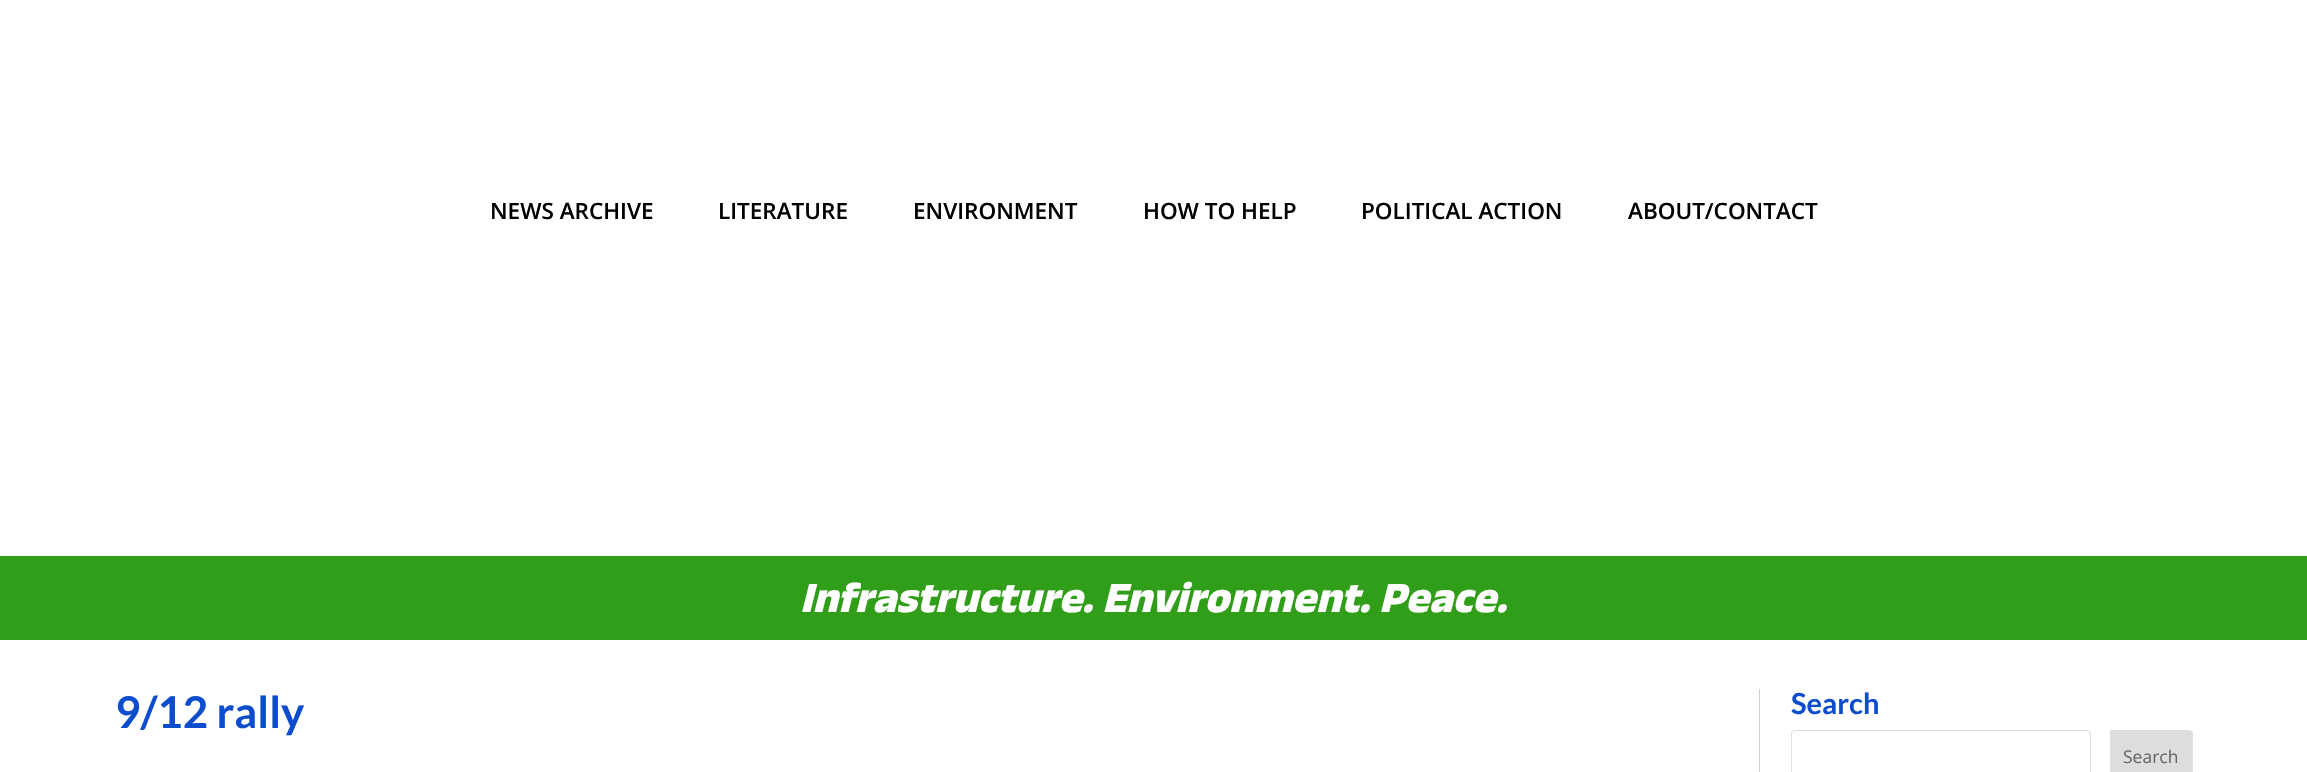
void draw(SkCanvas* canvas) {
	SkPaint fill;
	fill.setAntiAlias(true);
	auto makeFont = [&](const char* family, int weight, float size, bool italic = false) {
		SkFontStyle style(weight, SkFontStyle::kNormal_Width,
			italic ? SkFontStyle::kItalic_Slant : SkFontStyle::kUpright_Slant);
		SkFont result(fontMgr->matchFamilyStyle(family, style), size);
		result.setSubpixel(true);
		return result;
	};
	auto text = [&](const char* s, float x, float y, const SkFont& font) {
		canvas->drawString(s, x, y, font, fill);
	};
	auto box = [&](float l, float t, float r, float b) {
		canvas->drawRect(SkRect::MakeLTRB(l, t, r, b), fill);
	};
	canvas->clear(0xFFFFFFFF);
	fill.setColor(0xFF319E19);
	box(0, 556, 2307, 640);
	fill.setColor(0xFFD1D1D1);
	box(1759, 689, 1760, 772);
	fill.setStyle(SkPaint::kStroke_Style);
	fill.setStrokeWidth(1);
	fill.setColor(0xFFDDDDDD);
	canvas->drawRoundRect(SkRect::MakeLTRB(1791.5f, 730.5f, 2090.5f, 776.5f), 3.5f, 3.5f, fill);
	fill.setStyle(SkPaint::kFill_Style);
	canvas->drawPath(SkPathBuilder().moveTo(2110.5f, 730.5f).lineTo(2189, 730.5f).cubicTo(2191, 730.5f, 2192.5f, 732, 2192.5f, 734).lineTo(2192.5f, 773).cubicTo(2192.5f, 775, 2191, 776.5f, 2189, 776.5f).lineTo(2110.5f, 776.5f).close().detach(), fill);
	fill.setStyle(SkPaint::kStroke_Style);
	canvas->drawPath(SkPathBuilder().moveTo(2110.5f, 730.5f).lineTo(2189, 730.5f).cubicTo(2191, 730.5f, 2192.5f, 732, 2192.5f, 734).lineTo(2192.5f, 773).cubicTo(2192.5f, 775, 2191, 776.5f, 2189, 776.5f).lineTo(2110.5f, 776.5f).close().detach(), fill);
	auto font1 = makeFont("Open Sans", 600, 22.5f);
	fill.setStyle(SkPaint::kFill_Style);
	fill.setColor(0xFF000000);
	text("NEWS ARCHIVE", 490, 219, font1);
	text("LITERATURE", 718, 219, font1);
	text("ENVIRONMENT", 913, 219, font1);
	text("HOW TO HELP", 1143, 219, font1);
	text("POLITICAL ACTION", 1361, 219, font1);
	text("ABOUT/CONTACT", 1628, 219, font1);
	auto font2 = makeFont("Anek Devanagari", 800, 43.75f, true);
	fill.setColor(0xFFFFFFFF);
	text("Infrastructure. Environment. Peace.", 800, 612, font2);
	auto font3 = makeFont("Lato", 700, 43.75f);
	fill.setColor(0xFF0C4DCE);
	text("9/12 rally", 115, 728, font3);
	auto font4 = makeFont("Lato", 700, 29);
	text("Search", 1791, 714, font4);
	auto font5 = makeFont("Open Sans", 400, 17.5f);
	fill.setColor(0xFF666666);
	text("Search", 2123, 763, font5);
}
